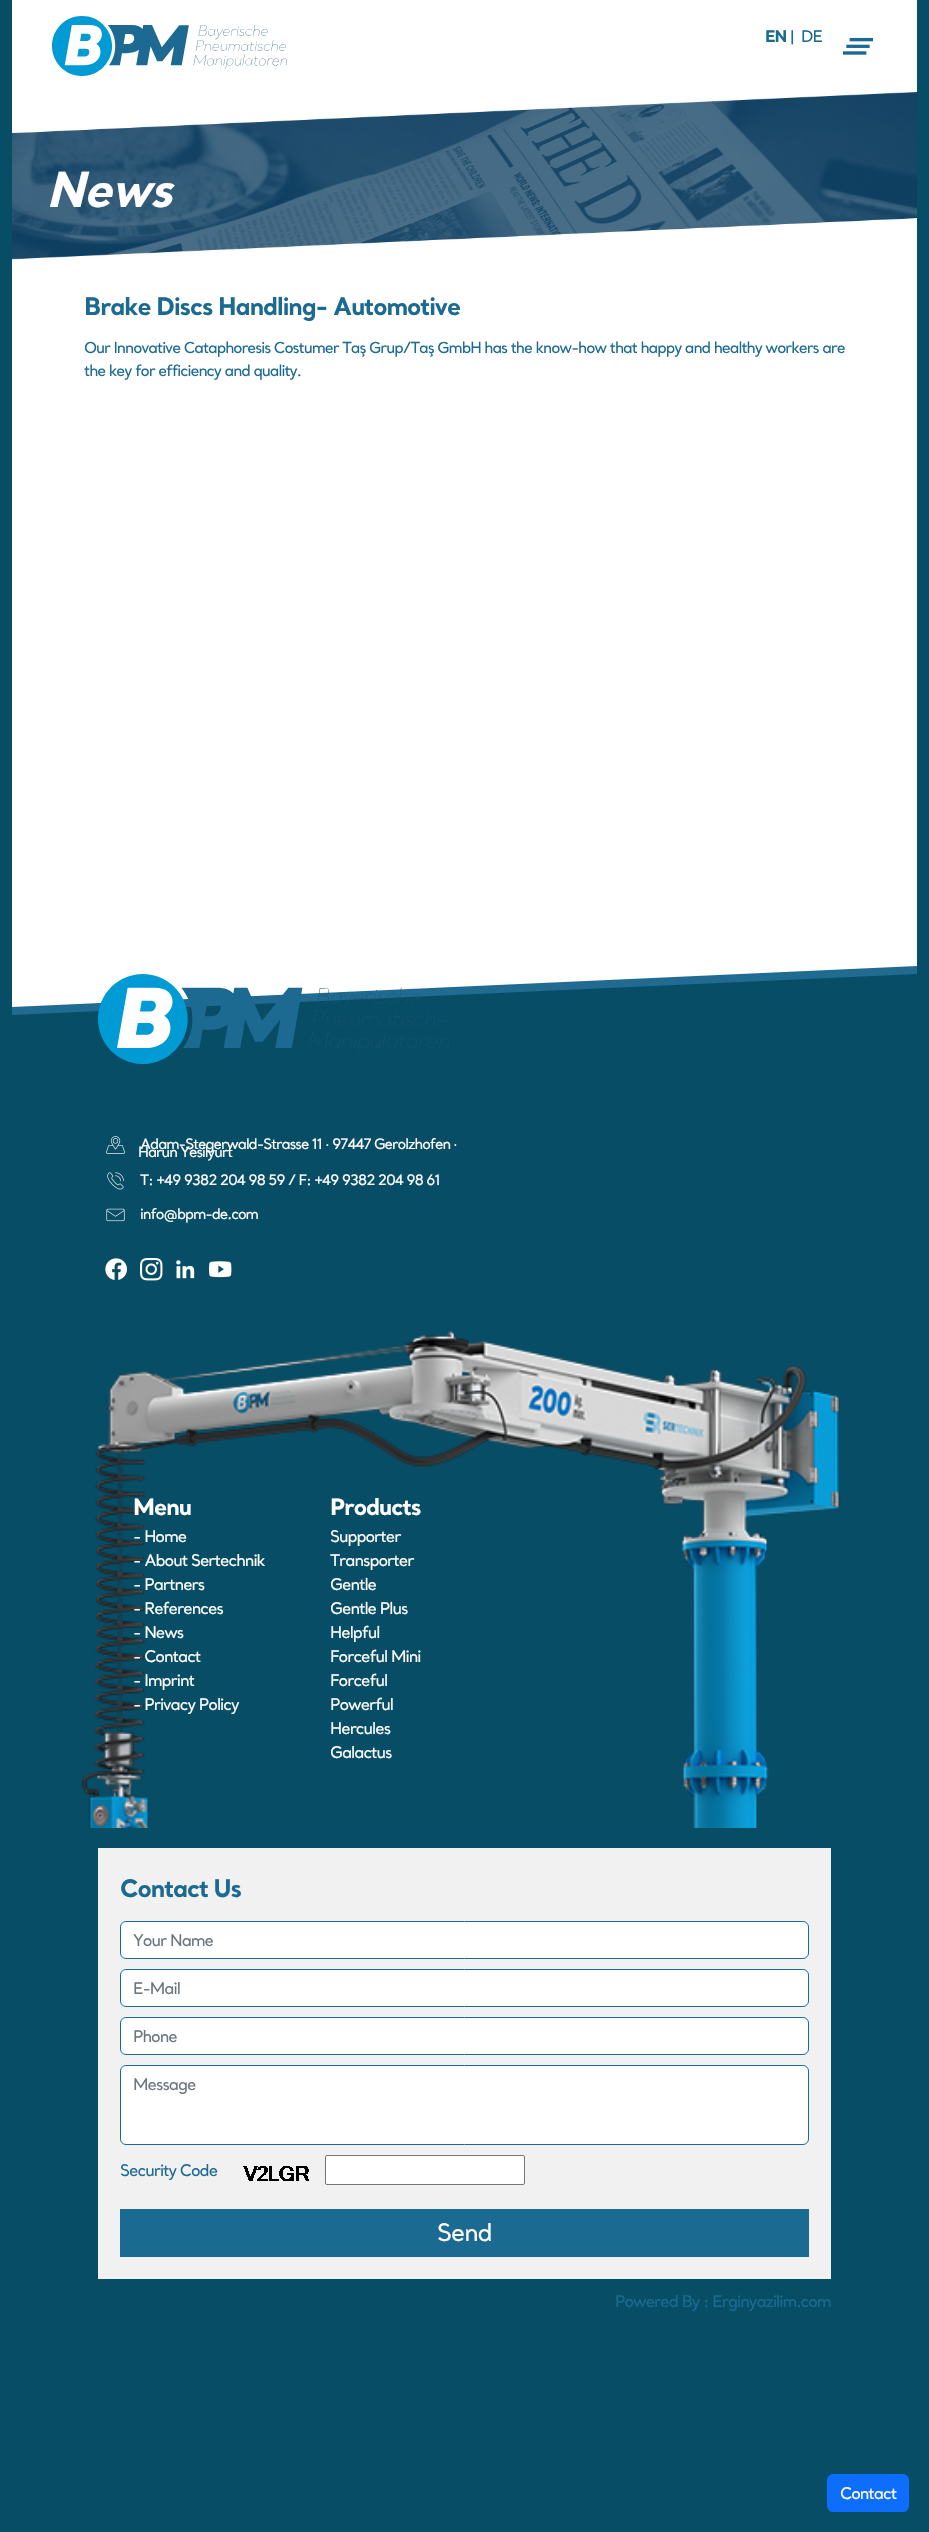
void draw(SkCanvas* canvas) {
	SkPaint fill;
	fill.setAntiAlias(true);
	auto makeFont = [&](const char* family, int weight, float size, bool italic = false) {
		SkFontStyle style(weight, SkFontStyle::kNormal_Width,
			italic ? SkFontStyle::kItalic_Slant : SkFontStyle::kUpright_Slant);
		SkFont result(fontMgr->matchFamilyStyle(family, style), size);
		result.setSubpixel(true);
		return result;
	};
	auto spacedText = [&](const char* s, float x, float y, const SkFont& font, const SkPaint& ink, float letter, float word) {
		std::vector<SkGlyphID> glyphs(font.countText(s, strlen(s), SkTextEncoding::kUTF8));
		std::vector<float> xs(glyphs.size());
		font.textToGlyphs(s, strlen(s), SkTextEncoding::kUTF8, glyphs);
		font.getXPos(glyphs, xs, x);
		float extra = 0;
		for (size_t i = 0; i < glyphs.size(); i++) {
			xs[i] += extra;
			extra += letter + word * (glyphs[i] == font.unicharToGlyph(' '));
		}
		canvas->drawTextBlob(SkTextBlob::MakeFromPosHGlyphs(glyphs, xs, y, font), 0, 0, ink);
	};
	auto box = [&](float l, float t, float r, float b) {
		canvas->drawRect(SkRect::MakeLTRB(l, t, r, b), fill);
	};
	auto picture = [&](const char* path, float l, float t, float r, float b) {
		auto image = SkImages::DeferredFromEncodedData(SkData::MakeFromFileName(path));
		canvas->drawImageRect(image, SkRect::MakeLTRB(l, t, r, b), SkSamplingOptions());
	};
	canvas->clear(0xFF084D66);
	fill.setColor(0xFFFFFFFF);
	box(12, 0, 917, 92);
	picture("image0.png", 52, 16, 287, 76);
	picture("image1.png", 843, 37, 873, 55);
	picture("image2.png", 12, 92, 917, 260);
	box(12, 260, 917, 830);
	fill.setColor(0xFF216B93);
	canvas->drawPath(SkPathBuilder().moveTo(12, 882).lineTo(917, 882).lineTo(917, 974).lineTo(12, 1015).close().detach(), fill);
	canvas->save();
	canvas->clipRect(SkRect::MakeLTRB(12, 830, 917, 1015));
	fill.setColor(0xFFFFFFFF);
	canvas->drawPath(SkPathBuilder().moveTo(12, 798).lineTo(917, 798).lineTo(917, 966).lineTo(12, 1007).close().detach(), fill);
	canvas->restore();
	picture("image3.png", 98, 974, 449, 1064);
	picture("image4.png", 106, 1136, 125, 1154);
	picture("image5.png", 107, 1172, 124, 1190);
	picture("image6.png", 106, 1208, 125, 1222);
	picture("image7.png", 105, 1258, 127, 1280);
	picture("image8.png", 140, 1258, 163, 1281);
	picture("image9.png", 176, 1260, 195, 1279);
	picture("image10.png", 209, 1261, 232, 1278);
	picture("image11.png", 82, 1331, 841, 1828);
	fill.setColor(0xFFF1F1F1);
	box(98, 1848, 831, 2279);
	fill.setColor(0xFFFFFFFF);
	canvas->drawRoundRect(SkRect::MakeLTRB(120.5f, 1921.5f, 808.5f, 1958.5f), 5.5f, 5.5f, fill);
	fill.setStyle(SkPaint::kStroke_Style);
	fill.setStrokeWidth(1);
	fill.setColor(0xFF1B6A92);
	canvas->drawRoundRect(SkRect::MakeLTRB(120.5f, 1921.5f, 808.5f, 1958.5f), 5.5f, 5.5f, fill);
	fill.setStyle(SkPaint::kFill_Style);
	fill.setColor(0xFFFFFFFF);
	canvas->drawRoundRect(SkRect::MakeLTRB(120.5f, 1969.5f, 808.5f, 2006.5f), 5.5f, 5.5f, fill);
	fill.setStyle(SkPaint::kStroke_Style);
	fill.setColor(0xFF1B6A92);
	canvas->drawRoundRect(SkRect::MakeLTRB(120.5f, 1969.5f, 808.5f, 2006.5f), 5.5f, 5.5f, fill);
	fill.setStyle(SkPaint::kFill_Style);
	fill.setColor(0xFFFFFFFF);
	canvas->drawRoundRect(SkRect::MakeLTRB(120.5f, 2017.5f, 808.5f, 2054.5f), 5.5f, 5.5f, fill);
	fill.setStyle(SkPaint::kStroke_Style);
	fill.setColor(0xFF1B6A92);
	canvas->drawRoundRect(SkRect::MakeLTRB(120.5f, 2017.5f, 808.5f, 2054.5f), 5.5f, 5.5f, fill);
	fill.setStyle(SkPaint::kFill_Style);
	fill.setColor(0xFFFFFFFF);
	canvas->drawRoundRect(SkRect::MakeLTRB(120.5f, 2065.5f, 808.5f, 2144.5f), 5.5f, 5.5f, fill);
	fill.setStyle(SkPaint::kStroke_Style);
	fill.setColor(0xFF1B6A92);
	canvas->drawRoundRect(SkRect::MakeLTRB(120.5f, 2065.5f, 808.5f, 2144.5f), 5.5f, 5.5f, fill);
	picture("image12.png", 243, 2166, 309, 2181);
	fill.setStyle(SkPaint::kFill_Style);
	fill.setColor(0xFFFFFFFF);
	canvas->drawRoundRect(SkRect::MakeLTRB(325.5f, 2155.5f, 524.5f, 2184.5f), 1.5f, 1.5f, fill);
	fill.setStyle(SkPaint::kStroke_Style);
	fill.setColor(0xFF767676);
	canvas->drawRoundRect(SkRect::MakeLTRB(325.5f, 2155.5f, 524.5f, 2184.5f), 1.5f, 1.5f, fill);
	fill.setStyle(SkPaint::kFill_Style);
	fill.setColor(0xFF1B6A92);
	box(120, 2209, 809, 2257);
	fill.setColor(0xFF0D6EFD);
	canvas->drawRoundRect(SkRect::MakeLTRB(827.5f, 2474.5f, 908.5f, 2511.5f), 5.5f, 5.5f, fill);
	fill.setStyle(SkPaint::kStroke_Style);
	canvas->drawRoundRect(SkRect::MakeLTRB(827.5f, 2474.5f, 908.5f, 2511.5f), 5.5f, 5.5f, fill);
	auto font1 = makeFont("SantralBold", 700, 16);
	fill.setStyle(SkPaint::kFill_Style);
	fill.setColor(0xFF1B6A92);
	spacedText("EN", 765, 42, font1, fill, -1, 0);
	auto font2 = makeFont("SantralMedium", 500, 16);
	spacedText("|", 790, 42, font2, fill, -1, 0);
	spacedText("DE", 801, 42, font2, fill, -1, 0);
	auto font3 = makeFont("SantralBold", 700, 48, true);
	fill.setColor(0xFFFFFFFF);
	spacedText("News", 46, 207, font3, fill, -1, 0);
	auto font4 = makeFont("SantralBold", 700, 24);
	fill.setColor(0xFF1B6A92);
	spacedText("Brake Discs Handling- Automotive", 84, 315, font4, fill, -1, 0);
	auto font5 = makeFont("SantralMedium", 500, 15.2f);
	spacedText("Our Innovative Cataphoresis Costumer Taş Grup/Taş GmbH has the know-how that happy and healthy workers are", 84, 353, font5, fill, -1, 0);
	spacedText("the key for efficiency and quality.", 84, 376, font5, fill, -1, 0);
	auto font6 = makeFont("SantralMedium", 500, 14.4f);
	fill.setColor(0xFFFFFFFF);
	spacedText("Adam-Stegerwald-Strasse 11", 140, 1149, font6, fill, -1, 0);
	auto font7 = makeFont("Liberation Sans", 400, 14.4f);
	spacedText("·", 325, 1149, font7, fill, -1, 0);
	spacedText("97447 Gerolzhofen", 332, 1149, font6, fill, -1, 0);
	spacedText("·", 453, 1149, font7, fill, -1, 0);
	spacedText("Harun Yesilyurt", 138, 1157, font6, fill, -1, 0);
	spacedText("T: +49 9382 204 98 59 / F: +49 9382 204 98 61", 140, 1185, font6, fill, -1, 0);
	spacedText("info@bpm-de.com", 140, 1219, font6, fill, -1, 0);
	auto font8 = makeFont("SantralBold", 700, 22.5f);
	spacedText("Menu", 133, 1515, font8, fill, -1, 0);
	spacedText("- Home", 133, 1542, font2, fill, -1, 0);
	spacedText("- About Sertechnik", 133, 1566, font2, fill, -1, 0);
	spacedText("- Partners", 133, 1590, font2, fill, -1, 0);
	spacedText("- References", 133, 1614, font2, fill, -1, 0);
	spacedText("- News", 133, 1638, font2, fill, -1, 0);
	spacedText("- Contact", 133, 1662, font2, fill, -1, 0);
	spacedText("- Imprint", 133, 1686, font2, fill, -1, 0);
	spacedText("- Privacy Policy", 133, 1710, font2, fill, -1, 0);
	spacedText("Products", 330, 1515, font8, fill, -1, 0);
	spacedText("Supporter", 330, 1542, font2, fill, -1, 0);
	spacedText("Transporter", 330, 1566, font2, fill, -1, 0);
	spacedText("Gentle", 330, 1590, font2, fill, -1, 0);
	spacedText("Gentle Plus", 330, 1614, font2, fill, -1, 0);
	spacedText("Helpful", 330, 1638, font2, fill, -1, 0);
	spacedText("Forceful Mini", 330, 1662, font2, fill, -1, 0);
	spacedText("Forceful", 330, 1686, font2, fill, -1, 0);
	spacedText("Powerful", 330, 1710, font2, fill, -1, 0);
	spacedText("Hercules", 330, 1734, font2, fill, -1, 0);
	spacedText("Galactus", 330, 1758, font2, fill, -1, 0);
	fill.setColor(0xFF1B6A92);
	spacedText("Contact Us", 120, 1897, font4, fill, -1, 0);
	fill.setColor(0xFF6C757D);
	spacedText("Your Name", 133, 1946, font2, fill, -1, 0);
	spacedText("E-Mail", 133, 1994, font2, fill, -1, 0);
	spacedText("Phone", 133, 2042, font2, fill, -1, 0);
	spacedText("Message", 133, 2090, font2, fill, -1, 0);
	fill.setColor(0xFF1B6A92);
	spacedText("Security Code", 120, 2176, font2, fill, -1, 0);
	auto font9 = makeFont("SantralMedium", 500, 24);
	fill.setColor(0xFFFFFFFF);
	spacedText("Send", 437, 2241, font9, fill, -1, 0);
	fill.setColor(0xFF1B6A92);
	spacedText("Powered By : Erginyazilim.com", 615, 2307, font2, fill, -1, 0);
	fill.setColor(0xFFFFFFFF);
	spacedText("Contact", 840, 2499, font2, fill, -1, 0);
}
